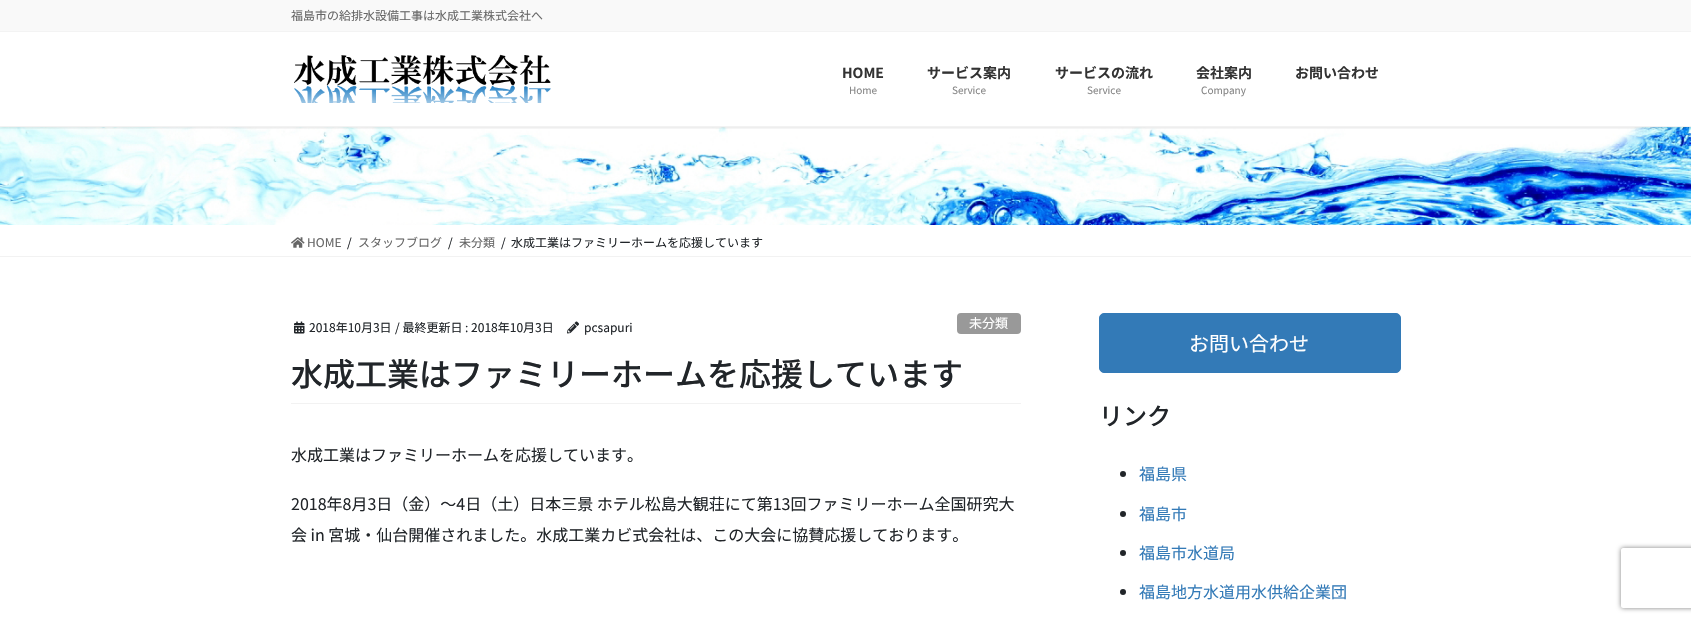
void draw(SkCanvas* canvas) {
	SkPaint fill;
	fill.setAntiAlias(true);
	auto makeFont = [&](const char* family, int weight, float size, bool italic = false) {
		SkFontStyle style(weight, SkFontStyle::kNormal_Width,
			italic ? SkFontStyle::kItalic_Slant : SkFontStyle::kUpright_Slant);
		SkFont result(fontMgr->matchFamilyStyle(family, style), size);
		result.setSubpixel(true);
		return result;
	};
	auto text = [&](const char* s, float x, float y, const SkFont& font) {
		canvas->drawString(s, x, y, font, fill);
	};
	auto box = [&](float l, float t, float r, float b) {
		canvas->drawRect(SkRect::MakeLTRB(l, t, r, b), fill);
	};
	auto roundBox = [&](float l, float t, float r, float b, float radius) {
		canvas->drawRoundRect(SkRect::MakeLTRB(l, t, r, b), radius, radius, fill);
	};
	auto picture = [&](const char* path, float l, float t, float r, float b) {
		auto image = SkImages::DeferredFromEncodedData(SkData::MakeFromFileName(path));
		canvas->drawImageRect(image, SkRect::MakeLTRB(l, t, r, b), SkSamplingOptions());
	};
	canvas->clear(0xFFFFFFFF);
	picture("image1.png", 0, 127, 1691, 225);
	canvas->save();
	canvas->clipRect(SkRect::MakeLTRB(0, 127, 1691, 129));
	fill.setColor(0x1A000000);
	fill.setMaskFilter(SkMaskFilter::MakeBlur(kNormal_SkBlurStyle, 1.5f));
	canvas->drawRect(SkRect::MakeLTRB(0, -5, 1691, 128), fill);
	fill.setMaskFilter(nullptr);
	canvas->restore();
	fill.setColor(0xFFF2F2F2);
	box(0, 126, 1691, 127);
	fill.setColor(0xFFF9F9F9);
	box(0, 0, 1691, 31);
	fill.setColor(0xFFF3F3F3);
	box(0, 31, 1691, 32);
	picture("image0.png", 294, 54, 551, 103);
	fill.setColor(0xFFF2F2F2);
	box(0, 256, 1691, 257);
	picture("image2.png", 291, 237, 305, 248);
	box(291, 403, 1021, 404);
	picture("image3.png", 294, 321, 305, 334);
	picture("image4.png", 567, 321, 579, 334);
	fill.setColor(0xFF999999);
	roundBox(957, 313, 1021, 334, 4);
	fill.setColor(0xFF337AB7);
	canvas->drawRoundRect(SkRect::MakeLTRB(1099.5f, 313.5f, 1400.5f, 372.5f), 4.5f, 4.5f, fill);
	fill.setStyle(SkPaint::kStroke_Style);
	fill.setStrokeWidth(1);
	canvas->drawRoundRect(SkRect::MakeLTRB(1099.5f, 313.5f, 1400.5f, 372.5f), 4.5f, 4.5f, fill);
	fill.setStyle(SkPaint::kFill_Style);
	fill.setColor(0xFF212529);
	canvas->drawCircle(1123, 474, 3, fill);
	canvas->drawCircle(1123, 514, 3, fill);
	canvas->drawCircle(1123, 553, 3, fill);
	canvas->drawCircle(1123, 592, 3, fill);
	canvas->save();
	canvas->clipPath(SkPathBuilder(SkPathFillType::kEvenOdd).moveTo(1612, 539).lineTo(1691, 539).lineTo(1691, 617).lineTo(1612, 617).close().moveTo(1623, 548).lineTo(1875, 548).cubicTo(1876, 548, 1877, 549, 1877, 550).lineTo(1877, 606).cubicTo(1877, 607, 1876, 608, 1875, 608).lineTo(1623, 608).cubicTo(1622, 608, 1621, 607, 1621, 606).lineTo(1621, 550).cubicTo(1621, 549, 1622, 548, 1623, 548).close().detach(), true);
	fill.setColor(0xFF808080);
	fill.setMaskFilter(SkMaskFilter::MakeBlur(kNormal_SkBlurStyle, 2.5f));
	canvas->drawRoundRect(SkRect::MakeLTRB(1621, 548, 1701, 608), 2, 2, fill);
	fill.setMaskFilter(nullptr);
	canvas->restore();
	auto font1 = makeFont("Noto Sans JP", 400, 12);
	fill.setColor(0xFF666666);
	text("福島市の給排水設備工事は水成工業株式会社へ", 291, 20, font1);
	auto font2 = makeFont("Noto Sans JP", 700, 14);
	fill.setColor(0xFF333333);
	text("HOME", 842, 78, font2);
	auto font3 = makeFont("Noto Sans JP", 400, 10);
	fill.setColor(0xFF858585);
	text("Home", 849, 94, font3);
	fill.setColor(0xFF333333);
	text("サービス案内", 927, 78, font2);
	fill.setColor(0xFF858585);
	text("Service", 952, 94, font3);
	fill.setColor(0xFF333333);
	text("サービスの流れ", 1055, 78, font2);
	fill.setColor(0xFF858585);
	text("Service", 1087, 94, font3);
	fill.setColor(0xFF333333);
	text("会社案内", 1196, 78, font2);
	fill.setColor(0xFF858585);
	text("Company", 1201, 94, font3);
	fill.setColor(0xFF333333);
	text("お問い合わせ", 1295, 78, font2);
	fill.setColor(0xFF666666);
	text("HOME", 307, 247, font1);
	fill.setColor(0xFF212529);
	text("/", 347, 247, font1);
	fill.setColor(0xFF666666);
	text("スタッフブログ", 358, 247, font1);
	fill.setColor(0xFF212529);
	text("/", 448, 247, font1);
	fill.setColor(0xFF666666);
	text("未分類", 459, 247, font1);
	fill.setColor(0xFF212529);
	text("/", 501, 247, font1);
	text("水成工業はファミリーホームを応援しています", 511, 247, font1);
	text("2018年10月3日", 309, 332, font1);
	text("/ 最終更新日 : 2018年10月3日", 395, 332, font1);
	text("pcsapuri", 584, 332, font1);
	auto font4 = makeFont("Noto Sans JP", 400, 13);
	fill.setColor(0xFFFFFFFF);
	text("未分類", 969, 328, font4);
	auto font5 = makeFont("Noto Sans JP", 500, 32);
	fill.setColor(0xFF212529);
	text("水成工業はファミリーホームを応援しています", 291, 386, font5);
	auto font6 = makeFont("Noto Sans JP", 400, 16);
	text("水成工業はファミリーホームを応援しています。", 291, 461, font6);
	text("2018年8月3日（金）～4日（土）日本三景 ホテル松島大観荘にて第13回ファミリーホーム全国研究大", 291, 510, font6);
	text("会 in 宮城・仙台開催されました。水成工業カビ式会社は、この大会に協賛応援しております。", 291, 541, font6);
	auto font7 = makeFont("Noto Sans JP", 400, 20);
	fill.setColor(0xFFFFFFFF);
	text("お問い合わせ", 1189, 351, font7);
	auto font8 = makeFont("Noto Sans JP", 500, 24);
	fill.setColor(0xFF212529);
	text("リンク", 1099, 425, font8);
	fill.setColor(0xFF337AB7);
	text("福島県", 1139, 480, font6);
	text("福島市", 1139, 520, font6);
	text("福島市水道局", 1139, 559, font6);
	text("福島地方水道用水供給企業団", 1139, 598, font6);
}
